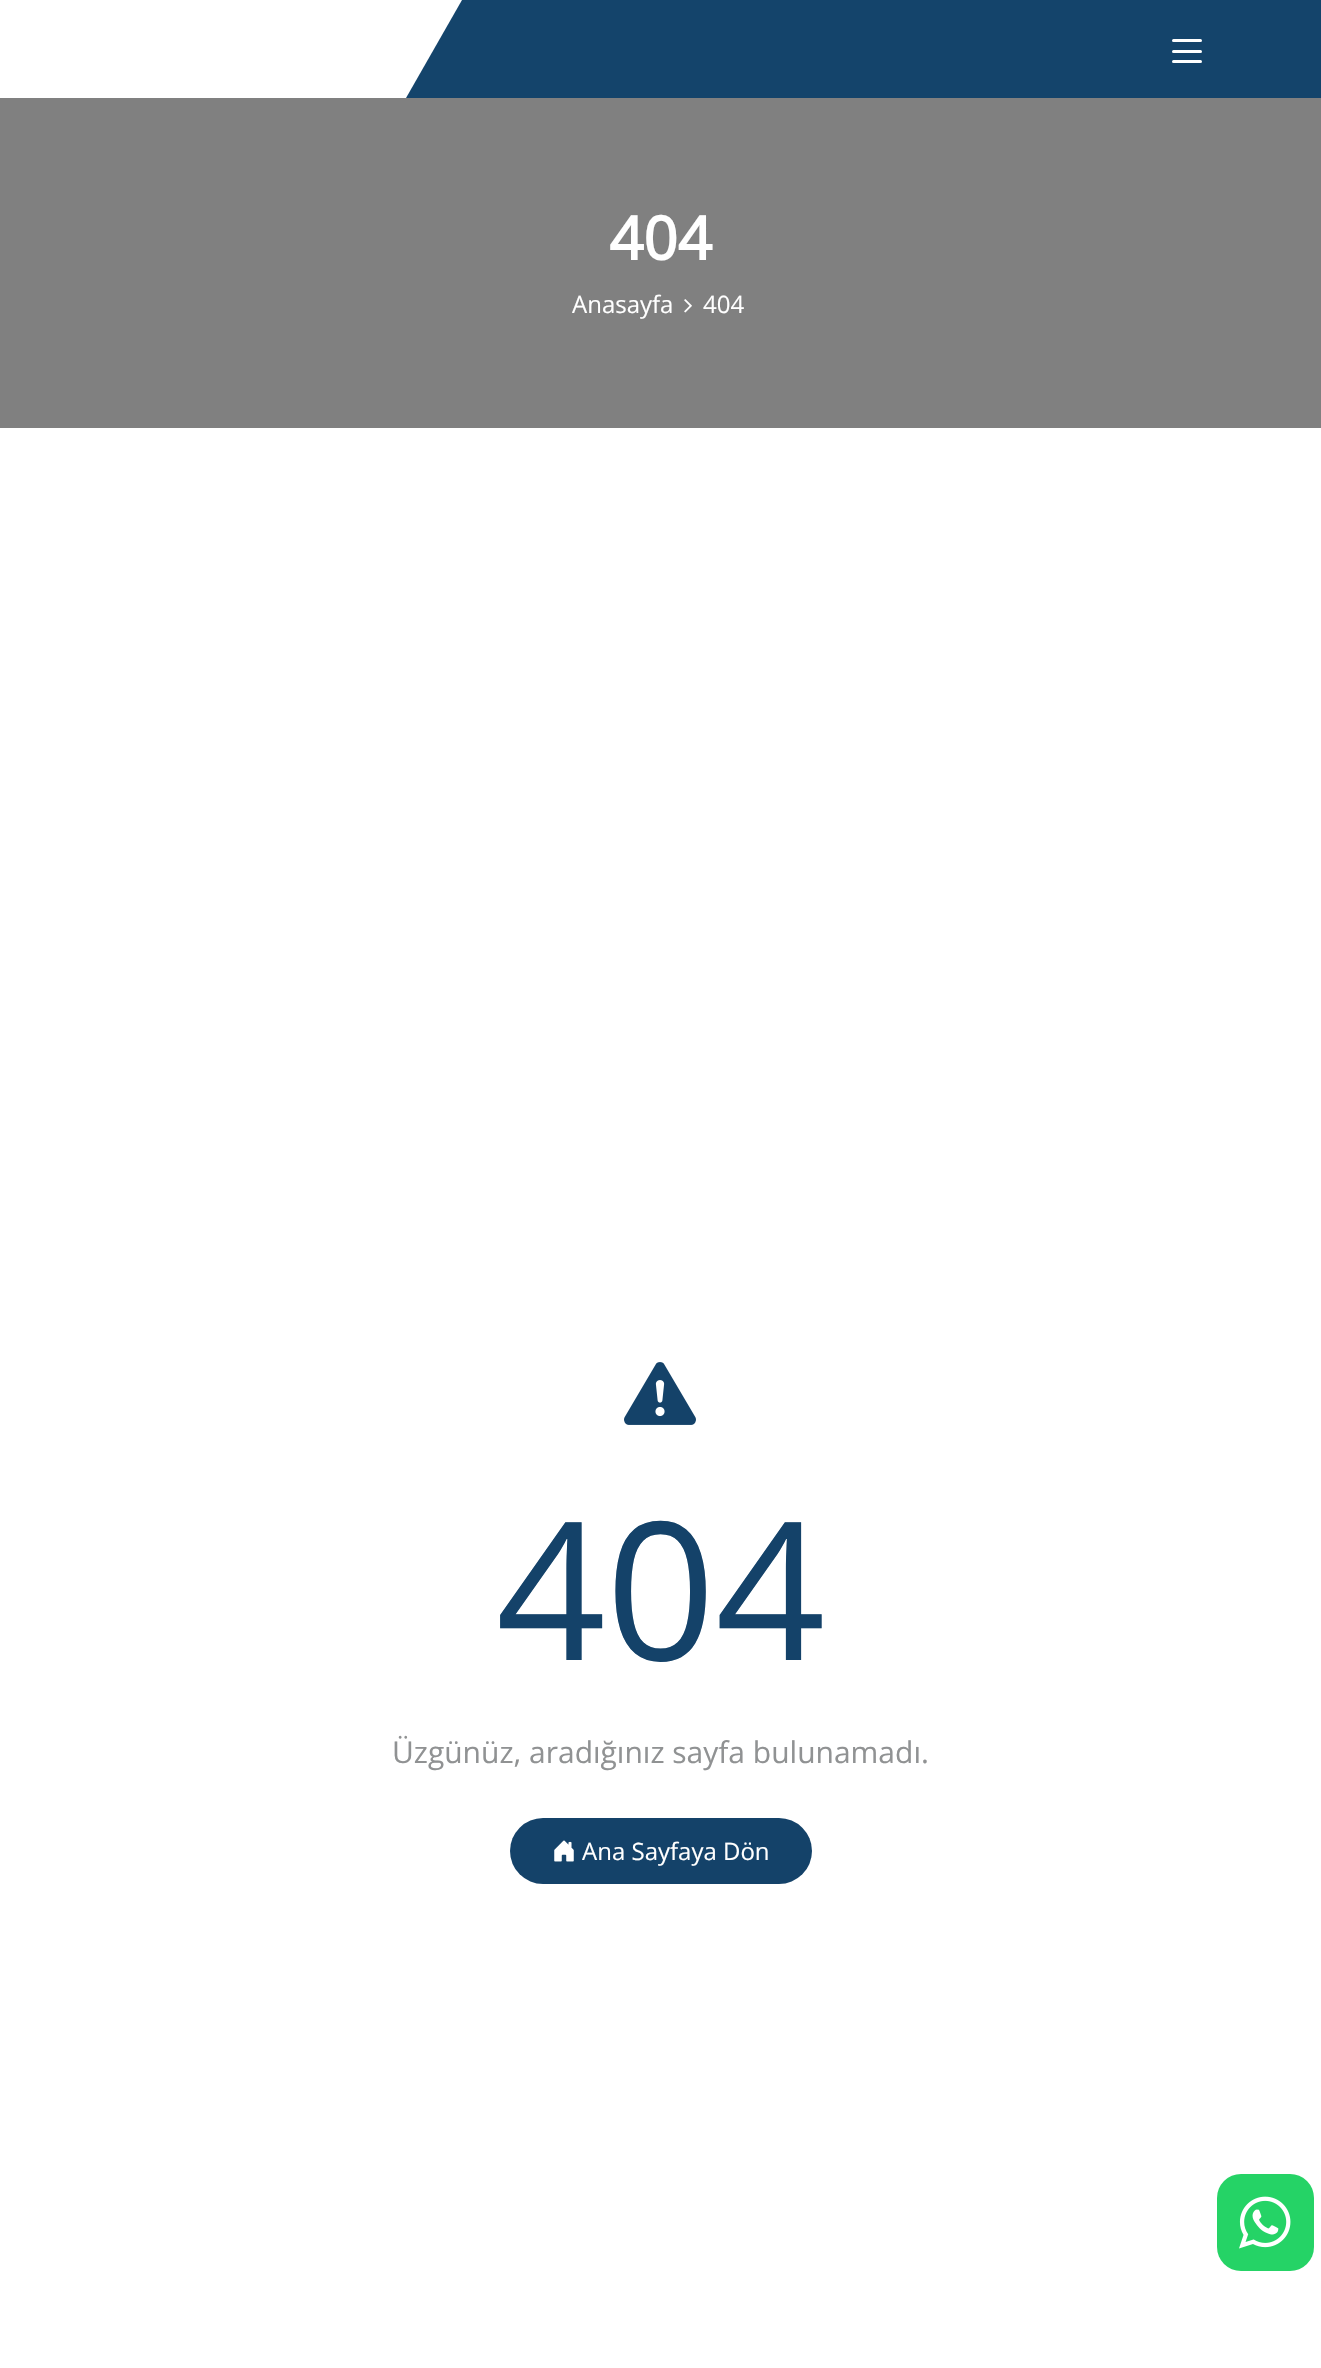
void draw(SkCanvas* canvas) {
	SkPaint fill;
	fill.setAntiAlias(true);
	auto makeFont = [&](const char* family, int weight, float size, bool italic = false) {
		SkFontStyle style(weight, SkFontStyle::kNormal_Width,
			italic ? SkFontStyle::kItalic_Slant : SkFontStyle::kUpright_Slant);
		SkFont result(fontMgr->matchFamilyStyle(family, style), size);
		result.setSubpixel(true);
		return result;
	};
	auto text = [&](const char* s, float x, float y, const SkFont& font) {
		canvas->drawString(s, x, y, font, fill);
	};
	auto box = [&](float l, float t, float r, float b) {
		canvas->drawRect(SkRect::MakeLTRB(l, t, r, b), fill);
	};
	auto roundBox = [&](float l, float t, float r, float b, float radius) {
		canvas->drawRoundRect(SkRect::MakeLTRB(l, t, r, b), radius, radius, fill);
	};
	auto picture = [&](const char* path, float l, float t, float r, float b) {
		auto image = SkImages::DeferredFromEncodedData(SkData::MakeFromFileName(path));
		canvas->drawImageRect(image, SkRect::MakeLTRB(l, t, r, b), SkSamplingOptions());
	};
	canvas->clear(0xFFFFFFFF);
	fill.setColor(0xFF14446B);
	box(406, 0, 1321, 98);
	fill.setColor(0xFFFFFFFF);
	canvas->drawPath(SkPathBuilder().moveTo(238, 0).lineTo(462, 0).lineTo(406, 98).lineTo(181, 98).close().detach(), fill);
	roundBox(1172, 39, 1202, 42, 1.5f);
	roundBox(1172, 50, 1202, 53, 1.5f);
	roundBox(1172, 60, 1202, 63, 1.5f);
	fill.setColor(0xFF808080);
	box(0, 98, 1321, 428);
	picture("image0.png", 684, 299, 692, 313);
	picture("image1.png", 624, 1362, 696, 1425);
	fill.setColor(0xFF144269);
	roundBox(510, 1818, 812, 1884, 33);
	picture("image2.png", 554, 1840, 574, 1862);
	fill.setColor(0xFF25D366);
	roundBox(1217, 2174, 1314, 2271, 24);
	picture("image3.png", 1239, 2196, 1291, 2249);
	auto font1 = makeFont("Open Sans", 700, 60);
	fill.setColor(0xFFFFFFFF);
	text("404", 609, 260, font1);
	auto font2 = makeFont("Open Sans", 400, 24);
	text("Anasayfa", 572, 313, font2);
	text("404", 703, 313, font2);
	auto font3 = makeFont("Open Sans", 400, 192);
	fill.setColor(0xFF144269);
	text("404", 496, 1660, font3);
	auto font4 = makeFont("Open Sans", 400, 30);
	fill.setColor(0xFF909293);
	text("Üzgünüz, aradığınız sayfa bulunamadı.", 392, 1763, font4);
	fill.setColor(0xFFFFFFFF);
	text("Ana Sayfaya Dön", 582, 1860, font2);
}
